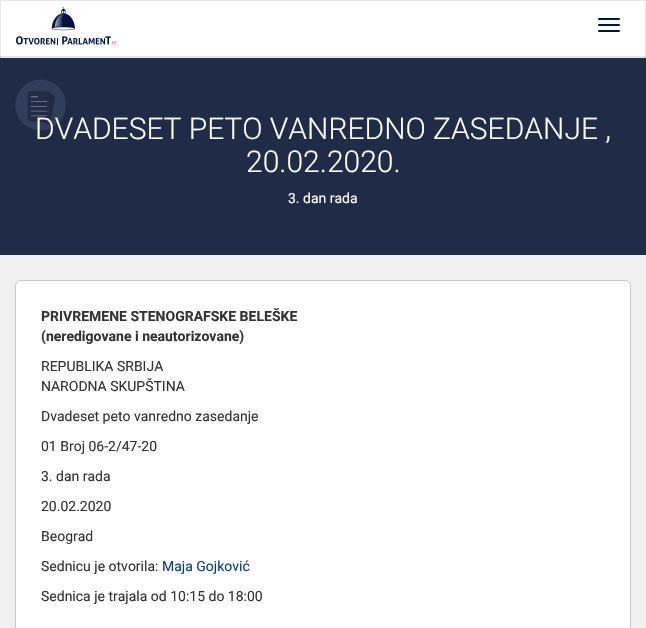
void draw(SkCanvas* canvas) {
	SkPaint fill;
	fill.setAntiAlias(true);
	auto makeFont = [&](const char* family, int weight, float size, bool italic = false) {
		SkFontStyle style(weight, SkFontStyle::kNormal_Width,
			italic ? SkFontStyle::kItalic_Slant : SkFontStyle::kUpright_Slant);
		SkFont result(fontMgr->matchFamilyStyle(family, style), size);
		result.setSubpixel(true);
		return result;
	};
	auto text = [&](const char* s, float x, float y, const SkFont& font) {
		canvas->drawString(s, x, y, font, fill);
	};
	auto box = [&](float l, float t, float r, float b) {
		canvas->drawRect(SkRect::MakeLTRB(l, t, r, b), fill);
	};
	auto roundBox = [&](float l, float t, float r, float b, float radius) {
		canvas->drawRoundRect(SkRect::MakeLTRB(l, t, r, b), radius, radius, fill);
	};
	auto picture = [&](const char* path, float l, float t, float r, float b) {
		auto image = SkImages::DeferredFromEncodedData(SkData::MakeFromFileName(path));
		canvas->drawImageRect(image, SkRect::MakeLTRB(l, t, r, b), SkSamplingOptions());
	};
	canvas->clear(0xFFF0F0F0);
	fill.setColor(0xFFFFFFFF);
	box(1, 1, 645, 56);
	fill.setColor(0xFFE7E7E7);
	box(0, 0, 646, 1);
	fill.setColor(0xFF202C47);
	box(0, 56, 646, 255);
	fill.setColor(0xFFE7E7E7);
	canvas->drawPath(SkPathBuilder().moveTo(646, 0).lineTo(646, 58).lineTo(645, 56).lineTo(645, 1).close().detach(), fill);
	fill.setColor(0xFFE6E6E6);
	canvas->drawPath(SkPathBuilder().moveTo(646, 58).lineTo(0, 58).lineTo(1, 56).lineTo(645, 56).close().detach(), fill);
	fill.setColor(0xFFE7E7E7);
	canvas->drawPath(SkPathBuilder().moveTo(0, 58).lineTo(0, 0).lineTo(1, 1).lineTo(1, 56).close().detach(), fill);
	picture("image0.png", 16, 7, 116, 45);
	fill.setColor(0xFF00143F);
	roundBox(598, 18, 620, 20, 1);
	roundBox(598, 24, 620, 26, 1);
	roundBox(598, 30, 620, 32, 1);
	picture("image1.png", 15, 79, 67, 132);
	fill.setColor(0xFFFFFFFF);
	canvas->drawRoundRect(SkRect::MakeLTRB(15.5f, 280.5f, 630.5f, 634.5f), 5.5f, 5.5f, fill);
	fill.setStyle(SkPaint::kStroke_Style);
	fill.setStrokeWidth(1);
	fill.setColor(0xFFC8C8C8);
	canvas->drawRoundRect(SkRect::MakeLTRB(15.5f, 280.5f, 630.5f, 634.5f), 5.5f, 5.5f, fill);
	auto font1 = makeFont("Roboto", 300, 30);
	fill.setStyle(SkPaint::kFill_Style);
	fill.setColor(0xFFFFFFFF);
	text("DVADESET PETO VANREDNO ZASEDANJE ,", 35, 139, font1);
	text("20.02.2020.", 246, 172, font1);
	auto font2 = makeFont("Roboto", 400, 14);
	text("3. dan rada", 288, 203, font2);
	auto font3 = makeFont("Roboto", 700, 14);
	fill.setColor(0xFF333333);
	text("PRIVREMENE STENOGRAFSKE BELEŠKE", 41, 321, font3);
	text("(neredigovane i neautorizovane)", 41, 341, font3);
	text("REPUBLIKA SRBIJA", 41, 371, font2);
	text("NARODNA SKUPŠTINA", 41, 391, font2);
	text("Dvadeset peto vanredno zasedanje", 41, 421, font2);
	text("01 Broj 06-2/47-20", 41, 451, font2);
	text("3. dan rada", 41, 481, font2);
	text("20.02.2020", 41, 511, font2);
	text("Beograd", 41, 541, font2);
	text("Sednicu je otvorila:", 41, 571, font2);
	fill.setColor(0xFF083D89);
	text("Maja Gojković", 162, 571, font2);
	fill.setColor(0xFF333333);
	text("Sednica je trajala od 10:15 do 18:00", 41, 601, font2);
}
